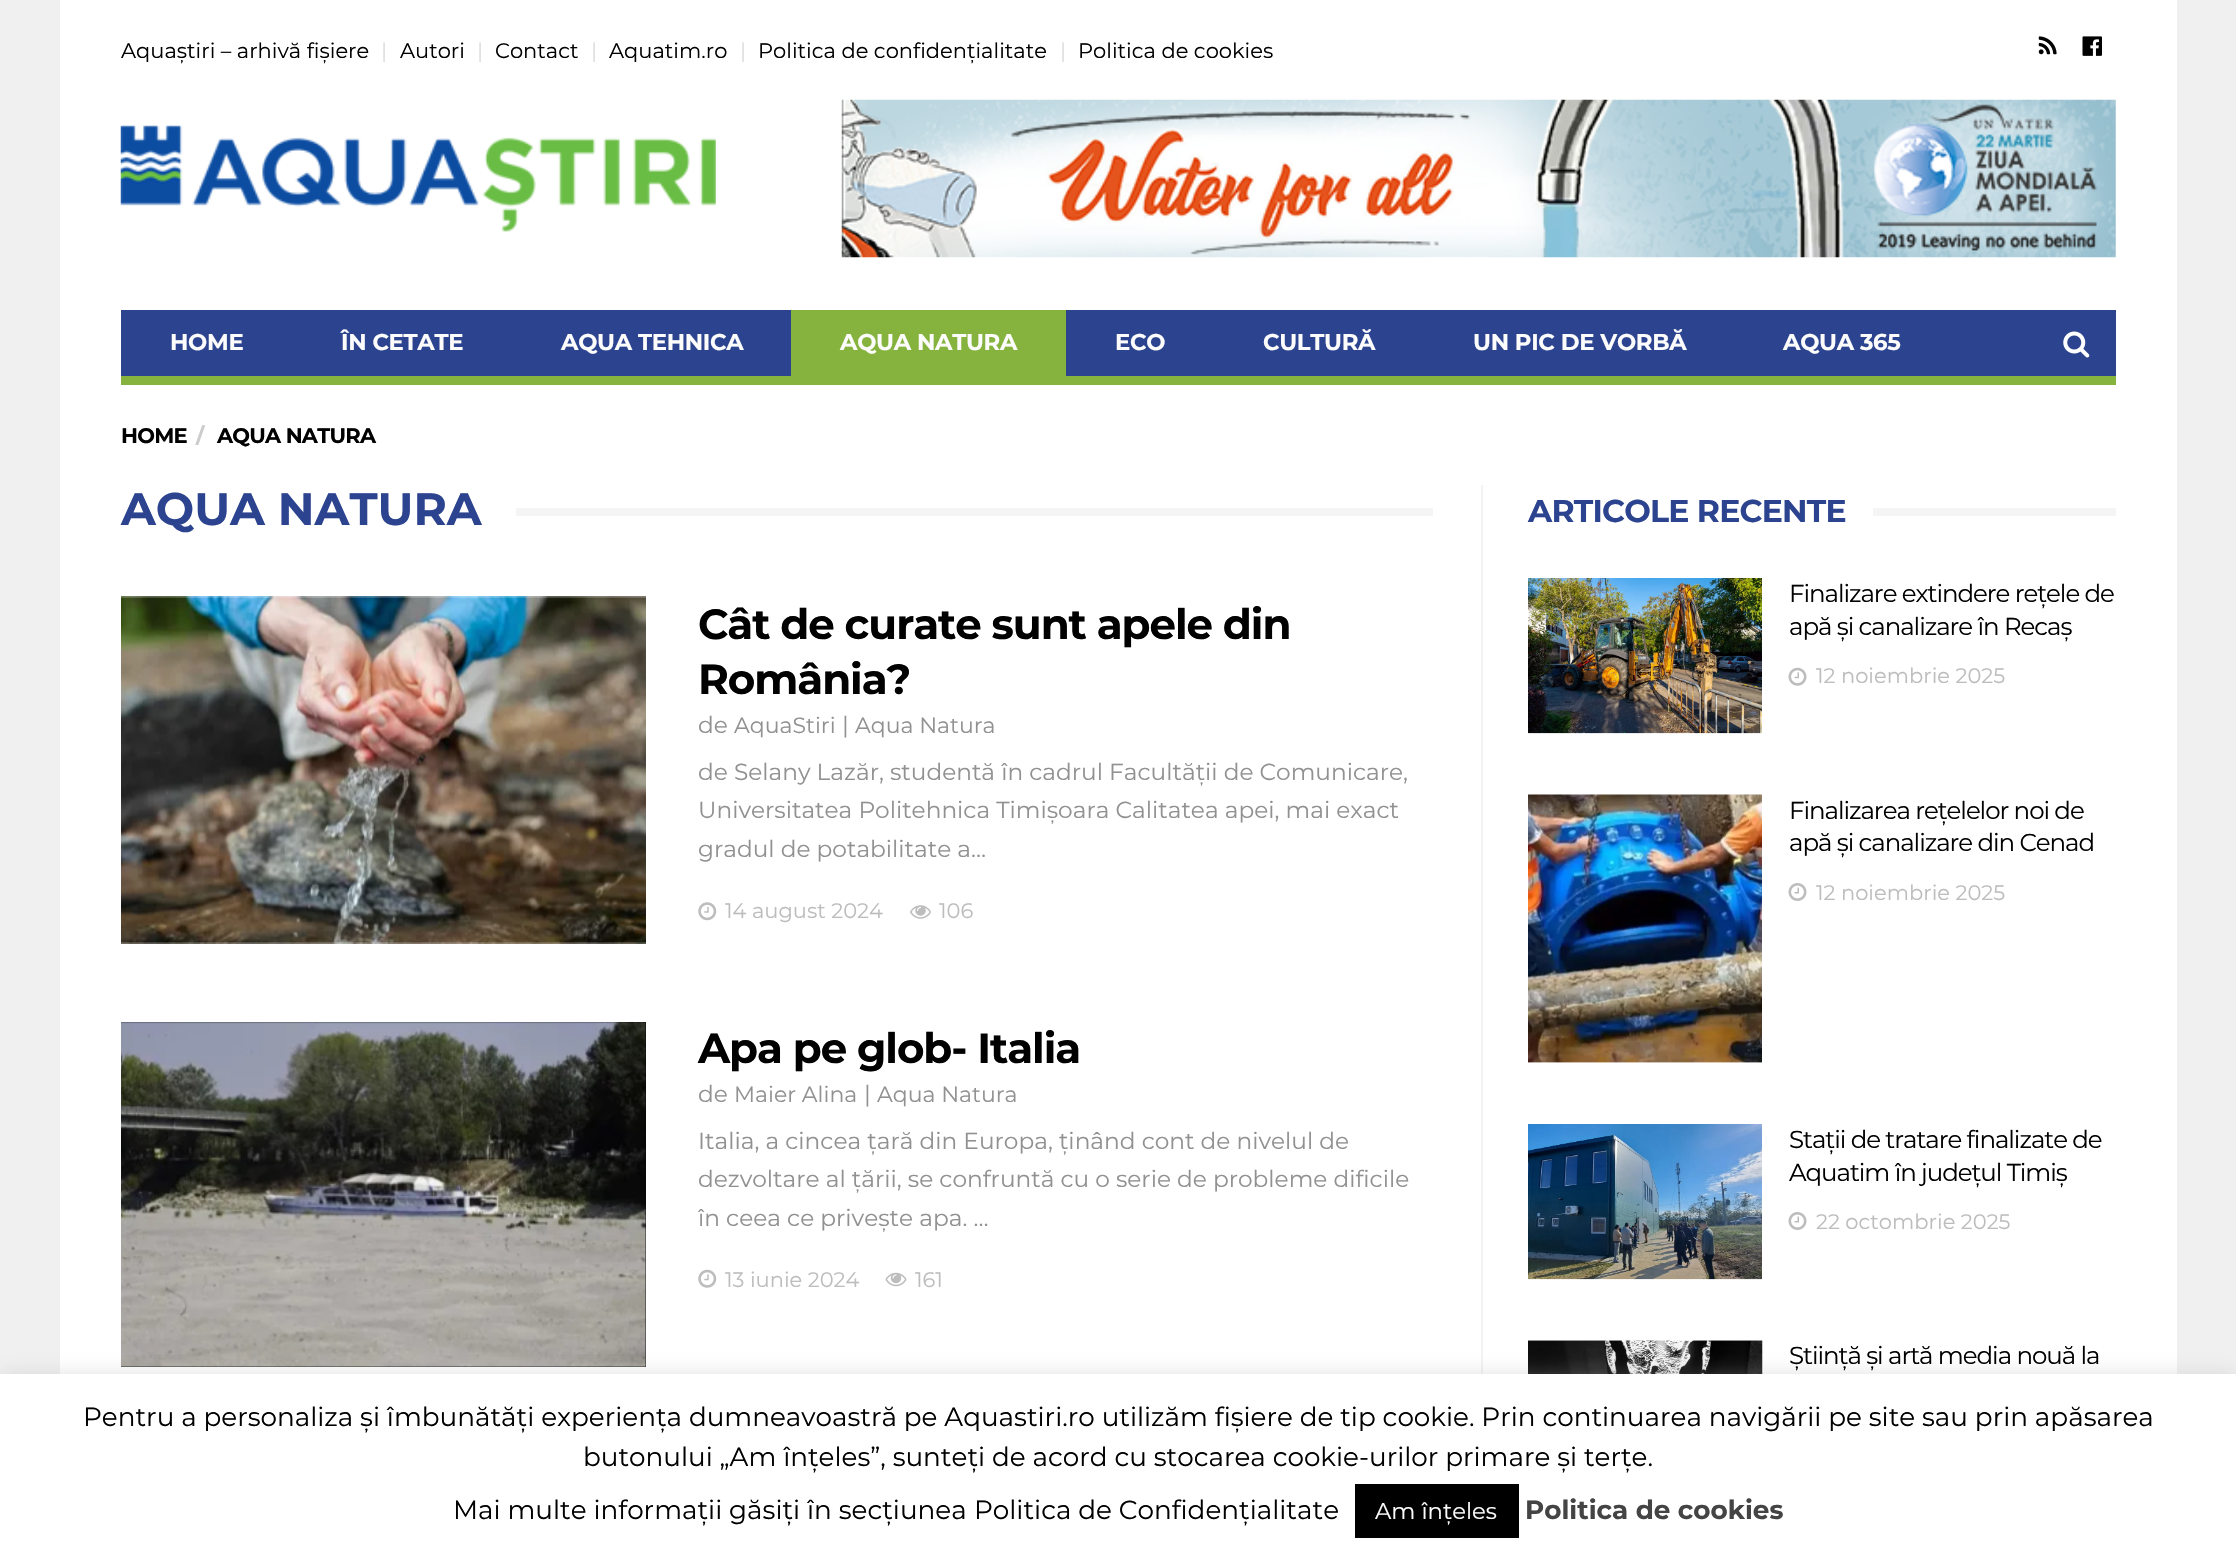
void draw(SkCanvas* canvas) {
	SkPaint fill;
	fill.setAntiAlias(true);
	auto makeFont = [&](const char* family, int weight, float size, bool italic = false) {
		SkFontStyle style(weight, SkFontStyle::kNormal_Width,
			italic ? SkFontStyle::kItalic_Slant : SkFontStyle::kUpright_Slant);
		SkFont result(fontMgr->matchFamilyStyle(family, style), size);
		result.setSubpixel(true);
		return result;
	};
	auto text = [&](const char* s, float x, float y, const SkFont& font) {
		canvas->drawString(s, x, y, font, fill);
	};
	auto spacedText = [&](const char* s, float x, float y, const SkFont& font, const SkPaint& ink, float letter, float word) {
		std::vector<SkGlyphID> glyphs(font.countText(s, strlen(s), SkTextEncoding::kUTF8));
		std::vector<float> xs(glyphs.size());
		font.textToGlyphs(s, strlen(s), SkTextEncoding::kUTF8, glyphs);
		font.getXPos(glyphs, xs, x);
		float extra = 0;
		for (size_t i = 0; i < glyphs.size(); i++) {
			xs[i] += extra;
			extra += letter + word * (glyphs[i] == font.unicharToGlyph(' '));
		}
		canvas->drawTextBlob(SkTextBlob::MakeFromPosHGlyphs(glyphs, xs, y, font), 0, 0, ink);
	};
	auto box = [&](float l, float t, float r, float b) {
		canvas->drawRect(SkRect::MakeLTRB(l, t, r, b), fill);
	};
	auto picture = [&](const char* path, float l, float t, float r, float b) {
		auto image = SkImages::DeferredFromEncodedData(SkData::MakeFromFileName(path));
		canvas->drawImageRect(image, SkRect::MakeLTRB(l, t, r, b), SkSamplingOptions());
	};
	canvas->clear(0xFFF0F0F0);
	fill.setColor(0xFFFFFFFF);
	box(60, 0, 2177, 1374);
	picture("image0.png", 2038, 36, 2057, 55);
	picture("image1.png", 2082, 36, 2102, 56);
	picture("image2.png", 120, 125, 716, 232);
	picture("image3.png", 841, 99, 2116, 258);
	fill.setColor(0xFF2C438F);
	box(121, 310, 2116, 376);
	fill.setColor(0xFF86B33E);
	box(121, 376, 2116, 385);
	box(791, 310, 1066, 376);
	picture("image4.png", 2063, 331, 2090, 358);
	fill.setColor(0xFFF3F3F3);
	box(1481, 485, 1483, 1374);
	fill.setColor(0xFFF5F5F5);
	box(516, 508, 1433, 516);
	picture("image5.png", 121, 596, 646, 944);
	picture("image6.png", 698, 902, 717, 921);
	picture("image7.png", 910, 905, 931, 919);
	fill.setColor(0xFF010101);
	box(121, 1022, 646, 1367);
	picture("image8.png", 121, 1022, 646, 1367);
	picture("image9.png", 698, 1269, 717, 1288);
	picture("image10.png", 885, 1272, 907, 1287);
	fill.setColor(0xFFF5F5F5);
	box(1873, 508, 2116, 516);
	picture("image11.png", 1528, 578, 1762, 734);
	picture("image12.png", 1788, 667, 1807, 686);
	picture("image13.png", 1528, 794, 1762, 1063);
	picture("image14.png", 1788, 883, 1807, 901);
	picture("image15.png", 1528, 1124, 1762, 1280);
	picture("image14.png", 1788, 1212, 1807, 1230);
	picture("image16.png", 1528, 1340, 1763, 1374);
	fill.setColor(0x4DACABAB);
	fill.setMaskFilter(SkMaskFilter::MakeBlur(kNormal_SkBlurStyle, 9));
	canvas->drawRect(SkRect::MakeLTRB(0, 1372, 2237, 1558), fill);
	fill.setMaskFilter(nullptr);
	fill.setColor(0xFFFFFFFF);
	box(0, 1374, 2236, 1558);
	fill.setColor(0xFF000000);
	box(1355, 1484, 1519, 1538);
	auto font1 = makeFont("Montserrat", 400, 21);
	fill.setColor(0xFF010101);
	text("Aquaștiri – arhivă fișiere", 121, 58, font1);
	fill.setColor(0xFFDDDDDD);
	text("|", 381, 58, font1);
	fill.setColor(0xFF010101);
	text("Autori", 400, 58, font1);
	fill.setColor(0xFFDDDDDD);
	text("|", 477, 58, font1);
	fill.setColor(0xFF010101);
	text("Contact", 495, 58, font1);
	fill.setColor(0xFFDDDDDD);
	text("|", 591, 58, font1);
	fill.setColor(0xFF010101);
	text("Aquatim.ro", 609, 58, font1);
	fill.setColor(0xFFDDDDDD);
	text("|", 740, 58, font1);
	fill.setColor(0xFF010101);
	text("Politica de confidențialitate", 758, 58, font1);
	fill.setColor(0xFFDDDDDD);
	text("|", 1060, 58, font1);
	fill.setColor(0xFF010101);
	text("Politica de cookies", 1078, 58, font1);
	auto font2 = makeFont("Montserrat", 700, 22.75f);
	fill.setColor(0xFFFCFCFC);
	spacedText("HOME", 170, 350, font2, fill, -0.3f, 0);
	spacedText("ÎN CETATE", 341, 350, font2, fill, -0.3f, 0);
	spacedText("AQUA TEHNICA", 561, 350, font2, fill, -0.3f, 0);
	spacedText("AQUA NATURA", 840, 350, font2, fill, -0.3f, 0);
	spacedText("ECO", 1115, 350, font2, fill, -0.3f, 0);
	spacedText("CULTURĂ", 1263, 350, font2, fill, -0.3f, 0);
	spacedText("UN PIC DE VORBĂ", 1473, 350, font2, fill, -0.3f, 0);
	spacedText("AQUA 365", 1783, 350, font2, fill, -0.3f, 0);
	auto font3 = makeFont("Montserrat", 700, 21);
	fill.setColor(0xFF010101);
	spacedText("HOME", 121, 443, font3, fill, -0.75f, 0);
	fill.setColor(0xFFCCCCCC);
	spacedText("/", 196, 443, font3, fill, -0.75f, 0);
	fill.setColor(0xFF010101);
	spacedText("AQUA NATURA", 217, 443, font3, fill, -0.75f, 0);
	auto font4 = makeFont("Montserrat", 700, 45.5f);
	fill.setColor(0xFF2C438F);
	text("AQUA NATURA", 121, 525, font4);
	auto font5 = makeFont("Montserrat", 700, 42);
	fill.setColor(0xFF010101);
	spacedText("Cât de curate sunt apele din", 698, 639, font5, fill, -1.05f, 0);
	spacedText("România?", 698, 694, font5, fill, -1.05f, 0);
	auto font6 = makeFont("Montserrat", 400, 23.25f);
	fill.setColor(0xFF919191);
	text("de", 698, 733, font6);
	auto font7 = makeFont("Montserrat", 400, 22);
	text("AquaStiri", 734, 733, font7);
	text("|", 842, 733, font6);
	text("Aqua Natura", 855, 733, font7);
	text("de Selany Lazăr, studentă în cadrul Facultății de Comunicare,", 698, 780, font6);
	text("Universitatea Politehnica Timișoara Calitatea apei, mai exact", 698, 818, font6);
	text("gradul de potabilitate a…", 698, 857, font6);
	fill.setColor(0xFFBDBDBD);
	text("14 august 2024", 725, 918, font1);
	text("106", 939, 918, font1);
	fill.setColor(0xFF010101);
	spacedText("Apa pe glob- Italia", 698, 1063, font5, fill, -1.05f, 0);
	fill.setColor(0xFF919191);
	text("de", 698, 1102, font6);
	text("Maier Alina", 734, 1102, font7);
	text("|", 864, 1102, font6);
	text("Aqua Natura", 877, 1102, font7);
	text("Italia, a cincea țară din Europa, ținând cont de nivelul de", 698, 1149, font6);
	text("dezvoltare al țării, se confruntă cu o serie de probleme dificile", 698, 1187, font6);
	text("în ceea ce privește apa. …", 698, 1226, font6);
	fill.setColor(0xFFBDBDBD);
	text("13 iunie 2024", 725, 1287, font1);
	text("161", 915, 1287, font1);
	auto font8 = makeFont("Montserrat", 700, 31.5f);
	fill.setColor(0xFF2C438F);
	spacedText("ARTICOLE RECENTE", 1528, 522, font8, fill, -0.75f, 0);
	auto font9 = makeFont("Montserrat", 400, 24.5f);
	fill.setColor(0xFF010101);
	spacedText("Finalizare extindere rețele de", 1789, 602, font9, fill, -1.05f, 0);
	spacedText("apă și canalizare în Recaș", 1789, 635, font9, fill, -1.05f, 0);
	fill.setColor(0xFFBDBDBD);
	text("12 noiembrie 2025", 1816, 683, font1);
	fill.setColor(0xFF010101);
	spacedText("Finalizarea rețelelor noi de", 1789, 819, font9, fill, -1.05f, 0);
	spacedText("apă și canalizare din Cenad", 1789, 851, font9, fill, -1.05f, 0);
	fill.setColor(0xFFBDBDBD);
	text("12 noiembrie 2025", 1816, 900, font1);
	fill.setColor(0xFF010101);
	spacedText("Stații de tratare finalizate de", 1789, 1148, font9, fill, -1.05f, 0);
	spacedText("Aquatim în județul Timiș", 1789, 1181, font9, fill, -1.05f, 0);
	fill.setColor(0xFFBDBDBD);
	text("22 octombrie 2025", 1816, 1229, font1);
	fill.setColor(0xFF010101);
	spacedText("Știință și artă media nouă la", 1789, 1364, font9, fill, -1.05f, 0);
	auto font10 = makeFont("Montserrat", 400, 26.25f);
	text("Pentru a personaliza și îmbunătăți experiența dumneavoastră pe Aquastiri.ro utilizăm fișiere de tip cookie. Prin continuarea navigării pe site sau prin apăsarea", 83, 1426, font10);
	text("butonului „Am înțeles”, sunteți de acord cu stocarea cookie-urilor primare și terțe.", 583, 1466, font10);
	text("Mai multe informații găsiți în secțiunea", 453, 1519, font10);
	text("Politica de Confidențialitate", 974, 1519, font10);
	auto font11 = makeFont("Montserrat", 400, 22.75f);
	fill.setColor(0xFFFCFCFC);
	text("Am înțeles", 1375, 1519, font11);
	auto font12 = makeFont("Montserrat", 700, 26.25f);
	fill.setColor(0xFF444444);
	text("Politica de cookies", 1525, 1519, font12);
}
